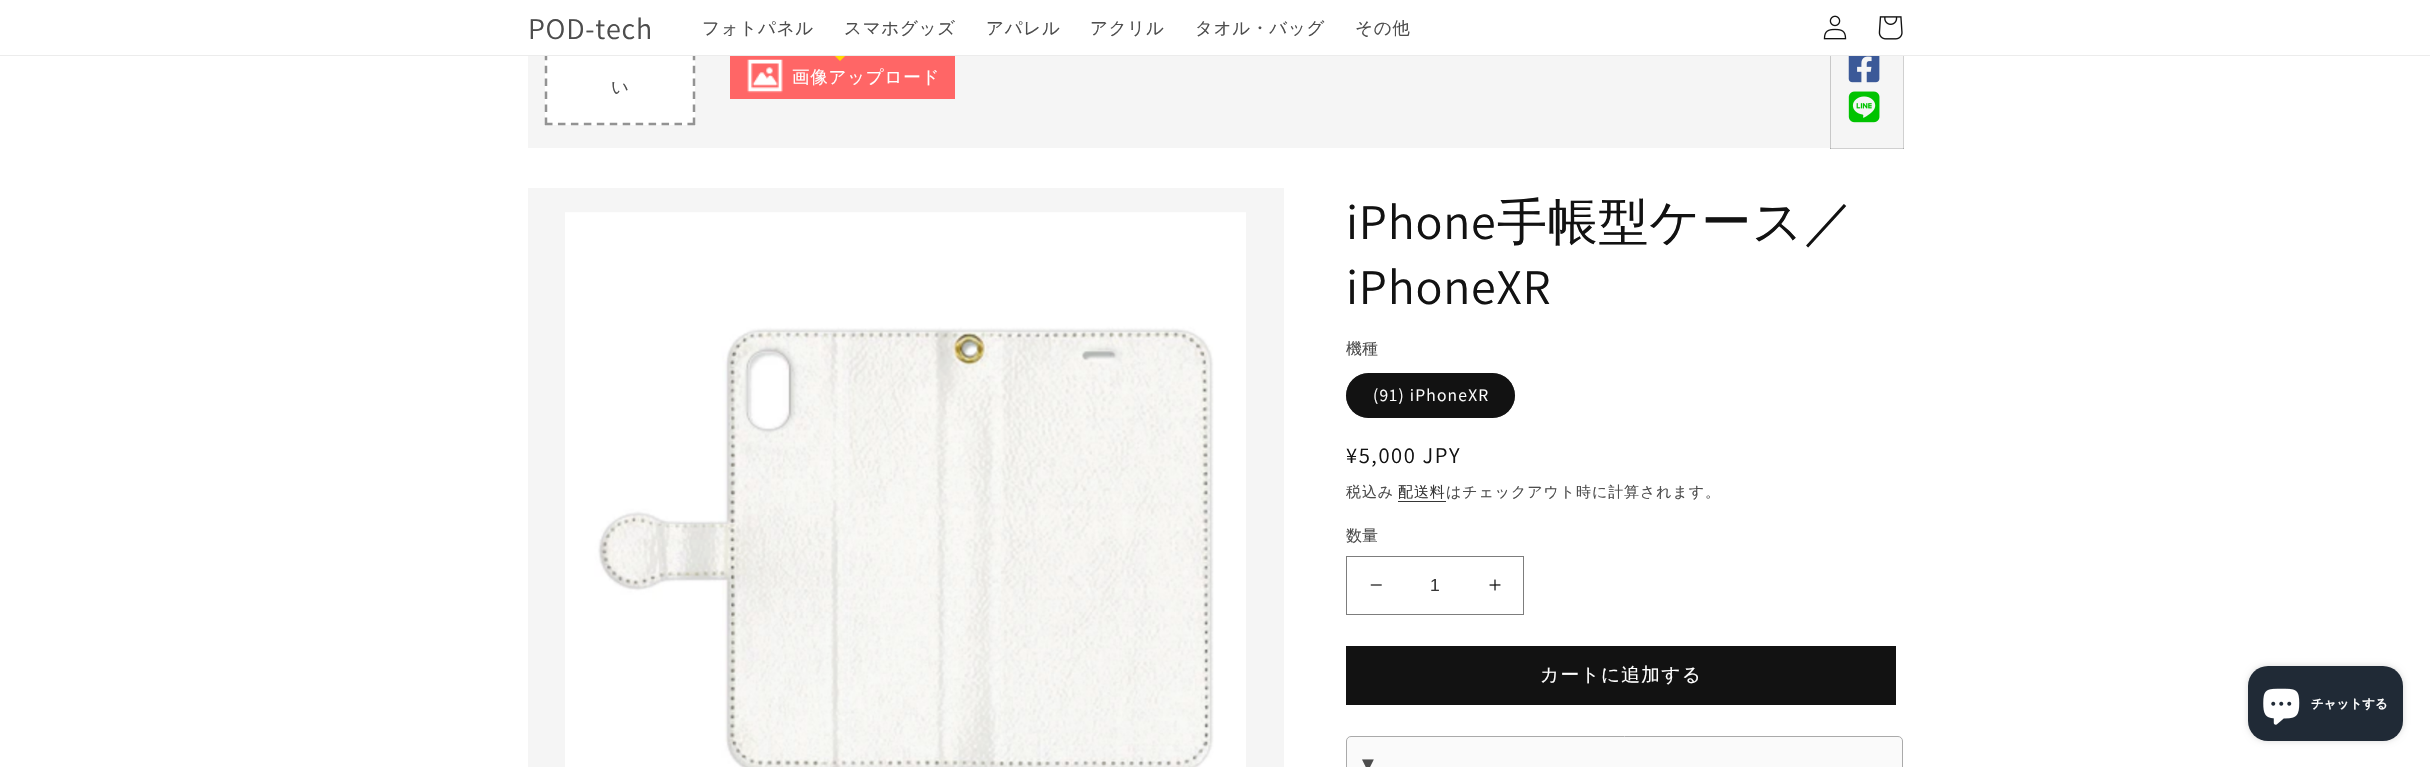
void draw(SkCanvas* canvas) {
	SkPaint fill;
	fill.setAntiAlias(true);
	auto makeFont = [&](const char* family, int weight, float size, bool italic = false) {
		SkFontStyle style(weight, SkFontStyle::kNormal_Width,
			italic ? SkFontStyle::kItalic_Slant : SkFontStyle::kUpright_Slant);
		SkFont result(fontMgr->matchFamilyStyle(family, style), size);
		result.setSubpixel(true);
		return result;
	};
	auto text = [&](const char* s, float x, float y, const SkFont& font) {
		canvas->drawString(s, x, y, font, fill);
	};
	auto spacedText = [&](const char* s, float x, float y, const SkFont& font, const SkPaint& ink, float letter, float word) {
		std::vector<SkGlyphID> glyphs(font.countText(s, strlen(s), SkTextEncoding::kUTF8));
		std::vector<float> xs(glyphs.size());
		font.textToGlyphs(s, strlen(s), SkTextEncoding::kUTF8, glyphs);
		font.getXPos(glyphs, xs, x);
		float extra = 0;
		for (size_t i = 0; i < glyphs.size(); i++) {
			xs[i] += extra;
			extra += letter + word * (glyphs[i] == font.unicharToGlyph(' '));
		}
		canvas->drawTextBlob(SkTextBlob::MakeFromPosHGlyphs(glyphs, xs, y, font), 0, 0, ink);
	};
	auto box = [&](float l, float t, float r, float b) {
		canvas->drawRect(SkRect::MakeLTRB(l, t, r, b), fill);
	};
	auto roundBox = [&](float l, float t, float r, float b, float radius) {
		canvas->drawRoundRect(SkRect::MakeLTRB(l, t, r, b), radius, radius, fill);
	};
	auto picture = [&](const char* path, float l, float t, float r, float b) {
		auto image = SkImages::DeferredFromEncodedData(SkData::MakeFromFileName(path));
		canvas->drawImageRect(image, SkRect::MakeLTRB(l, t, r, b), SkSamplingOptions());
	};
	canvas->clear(0xFFFFFFFF);
	fill.setColor(0xFFD0D0D0);
	box(1830, 148, 1904, 149);
	fill.setColor(0xFFAAAAAA);
	box(1830, 148, 1831, 149);
	fill.setColor(0xFFF5F5F5);
	box(528, 56, 1903, 148);
	fill.setColor(0xFFFF6666);
	box(730, 56, 955, 99);
	fill.setColor(0xFFFFD700);
	canvas->drawPath(SkPathBuilder().moveTo(821, 42.5f).lineTo(859, 42.5f).lineTo(840, 61).close().detach(), fill);
	fill.setColor(0xFFFFFFFF);
	box(545, 56, 695, 125);
	fill.setStyle(SkPaint::kStroke_Style);
	fill.setStrokeWidth(2.5f);
	fill.setColor(0xFF939393);
	fill.setPathEffect(SkDashPathEffect::Make({{7.5f, 5.45f}}, 0));
	canvas->drawPath(SkPathBuilder().moveTo(694, -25).lineTo(694, 125).detach(), fill);
	fill.setPathEffect(nullptr);
	fill.setPathEffect(SkDashPathEffect::Make({{7.5f, 5.45f}}, 0));
	canvas->drawPath(SkPathBuilder().moveTo(545, 124).lineTo(695, 124).detach(), fill);
	fill.setPathEffect(nullptr);
	fill.setPathEffect(SkDashPathEffect::Make({{7.5f, 5.45f}}, 0));
	canvas->drawPath(SkPathBuilder().moveTo(546, -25).lineTo(546, 125).detach(), fill);
	fill.setPathEffect(nullptr);
	fill.setStyle(SkPaint::kFill_Style);
	fill.setColor(0xFFFFFFFF);
	box(544, 0, 859, 55);
	fill.setColor(0xFFECECEC);
	box(0, 55, 2430, 56);
	picture("image0.png", 1823, 15, 1847, 40);
	picture("image1.png", 1878, 16, 1903, 40);
	fill.setColor(0xFFC8C8C8);
	box(1830, 56, 1831, 148);
	picture("image2.png", 747, 59, 783, 93);
	fill.setColor(0xFFD0D0D0);
	box(1903, 56, 1904, 149);
	fill.setColor(0xFFAAAAAA);
	box(1903, 148, 1904, 149);
	picture("image3.png", 1848, 56, 1880, 83);
	picture("image4.png", 1848, 91, 1880, 123);
	fill.setColor(0xFFF5F5F5);
	box(528, 188, 1284, 767);
	picture("image5.png", 565, 212, 1246, 767);
	fill.setColor(0xFF121212);
	roundBox(1346, 373, 1515, 418, 22.5f);
	fill.setStyle(SkPaint::kStroke_Style);
	fill.setStrokeWidth(1);
	fill.setColor(0x8C121212);
	canvas->drawRoundRect(SkRect::MakeLTRB(1346.5f, 373.5f, 1514.5f, 417.5f), 22, 22, fill);
	fill.setStyle(SkPaint::kFill_Style);
	fill.setColor(0xFF363636);
	box(1398, 501, 1446, 502);
	picture("image6.png", 1370, 584, 1382, 586);
	picture("image7.png", 1489, 579, 1501, 591);
	fill.setStyle(SkPaint::kStroke_Style);
	fill.setColor(0xFF7D7D7D);
	canvas->drawRect(SkRect::MakeLTRB(1346.5f, 556.5f, 1523.5f, 614.5f), fill);
	fill.setStyle(SkPaint::kFill_Style);
	fill.setColor(0xFF121212);
	box(1346, 646, 1896, 705);
	fill.setColor(0xFFFAFAFA);
	canvas->drawRoundRect(SkRect::MakeLTRB(1346.5f, 736.5f, 1902.5f, 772.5f), 4.5f, 4.5f, fill);
	fill.setStyle(SkPaint::kStroke_Style);
	fill.setColor(0xFFAAAAAA);
	canvas->drawRoundRect(SkRect::MakeLTRB(1346.5f, 736.5f, 1902.5f, 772.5f), 4.5f, 4.5f, fill);
	fill.setStyle(SkPaint::kFill_Style);
	fill.setColor(0x26000000);
	fill.setMaskFilter(SkMaskFilter::MakeBlur(kNormal_SkBlurStyle, 3));
	canvas->drawRoundRect(SkRect::MakeLTRB(2248, 666, 2403, 741), 20, 20, fill);
	fill.setMaskFilter(nullptr);
	fill.setColor(0xFF202A36);
	roundBox(2248, 666, 2403, 741, 20);
	picture("image8.png", 2263, 688, 2300, 725);
	auto font1 = makeFont("Assistant", 400, 30);
	fill.setColor(0xFF4D4D4D);
	spacedText("POD-tech", 528, 39, font1, fill, 0.75f, 0);
	auto font2 = makeFont("WenQuanYi Zen Hei", 500, 17.5f);
	spacedText("フォトパネル", 702, 34, font2, fill, 0.75f, 0);
	spacedText("スマホグッズ", 844, 34, font2, fill, 0.75f, 0);
	spacedText("アパレル", 986, 34, font2, fill, 0.75f, 0);
	spacedText("アクリル", 1090, 34, font2, fill, 0.75f, 0);
	spacedText("タオル・バッグ", 1195, 34, font2, fill, 0.75f, 0);
	spacedText("その他", 1355, 34, font2, fill, 0.75f, 0);
	fill.setColor(0xFFFFFFFF);
	spacedText("画像アップロード", 792, 83, font2, fill, 0.75f, 0);
	fill.setColor(0xFF4D4D4D);
	spacedText("い", 611, 93, font2, fill, 0.75f, 0);
	auto font3 = makeFont("Assistant", 400, 50);
	fill.setColor(0xFF121212);
	spacedText("iPhone", 1346, 239, font3, fill, 0.75f, 0);
	auto font4 = makeFont("WenQuanYi Zen Hei", 500, 50);
	spacedText("手帳型ケース／", 1497, 239, font4, fill, 0.75f, 0);
	spacedText("iPhoneXR", 1346, 304, font3, fill, 0.75f, 0);
	auto font5 = makeFont("WenQuanYi Zen Hei", 500, 16);
	fill.setColor(0xFF4D4D4D);
	text("機種", 1346, 354, font5);
	auto font6 = makeFont("Assistant", 400, 17.5f);
	fill.setColor(0xFFFFFFFF);
	spacedText("(91) iPhoneXR", 1373, 401, font6, fill, 1.25f, 0);
	auto font7 = makeFont("Assistant", 400, 22.5f);
	fill.setColor(0xFF121212);
	spacedText("¥5,000 JPY", 1346, 463, font7, fill, 1.6f, 0);
	auto font8 = makeFont("WenQuanYi Zen Hei", 500, 15);
	fill.setColor(0xFF4D4D4D);
	spacedText("税込み", 1346, 497, font8, fill, 0.9f, 0);
	fill.setColor(0xFF363636);
	spacedText("配送料", 1398, 497, font8, fill, 0.9f, 0);
	fill.setColor(0xFF4D4D4D);
	spacedText("はチェックアウト時に計算されます。", 1446, 497, font8, fill, 0.9f, 0);
	text("数量", 1346, 541, font5);
	auto font9 = makeFont("Liberation Sans", 400, 17.5f);
	fill.setColor(0xFF363636);
	text("1", 1430, 591, font9);
	auto font10 = makeFont("WenQuanYi Zen Hei", 500, 18.75f);
	fill.setColor(0xFFFFFFFF);
	spacedText("カートに追加する", 1540, 681, font10, fill, 1.25f, 0);
	auto font11 = makeFont("Liberation Sans", 400, 20);
	fill.setColor(0xFF4D4D4D);
	spacedText("▼", 1358, 771, font11, fill, 0.75f, 0);
	auto font12 = makeFont("WenQuanYi Zen Hei", 700, 12.5f);
	fill.setColor(0xFFFFFFFF);
	text("チャットする", 2311, 708, font12);
}
